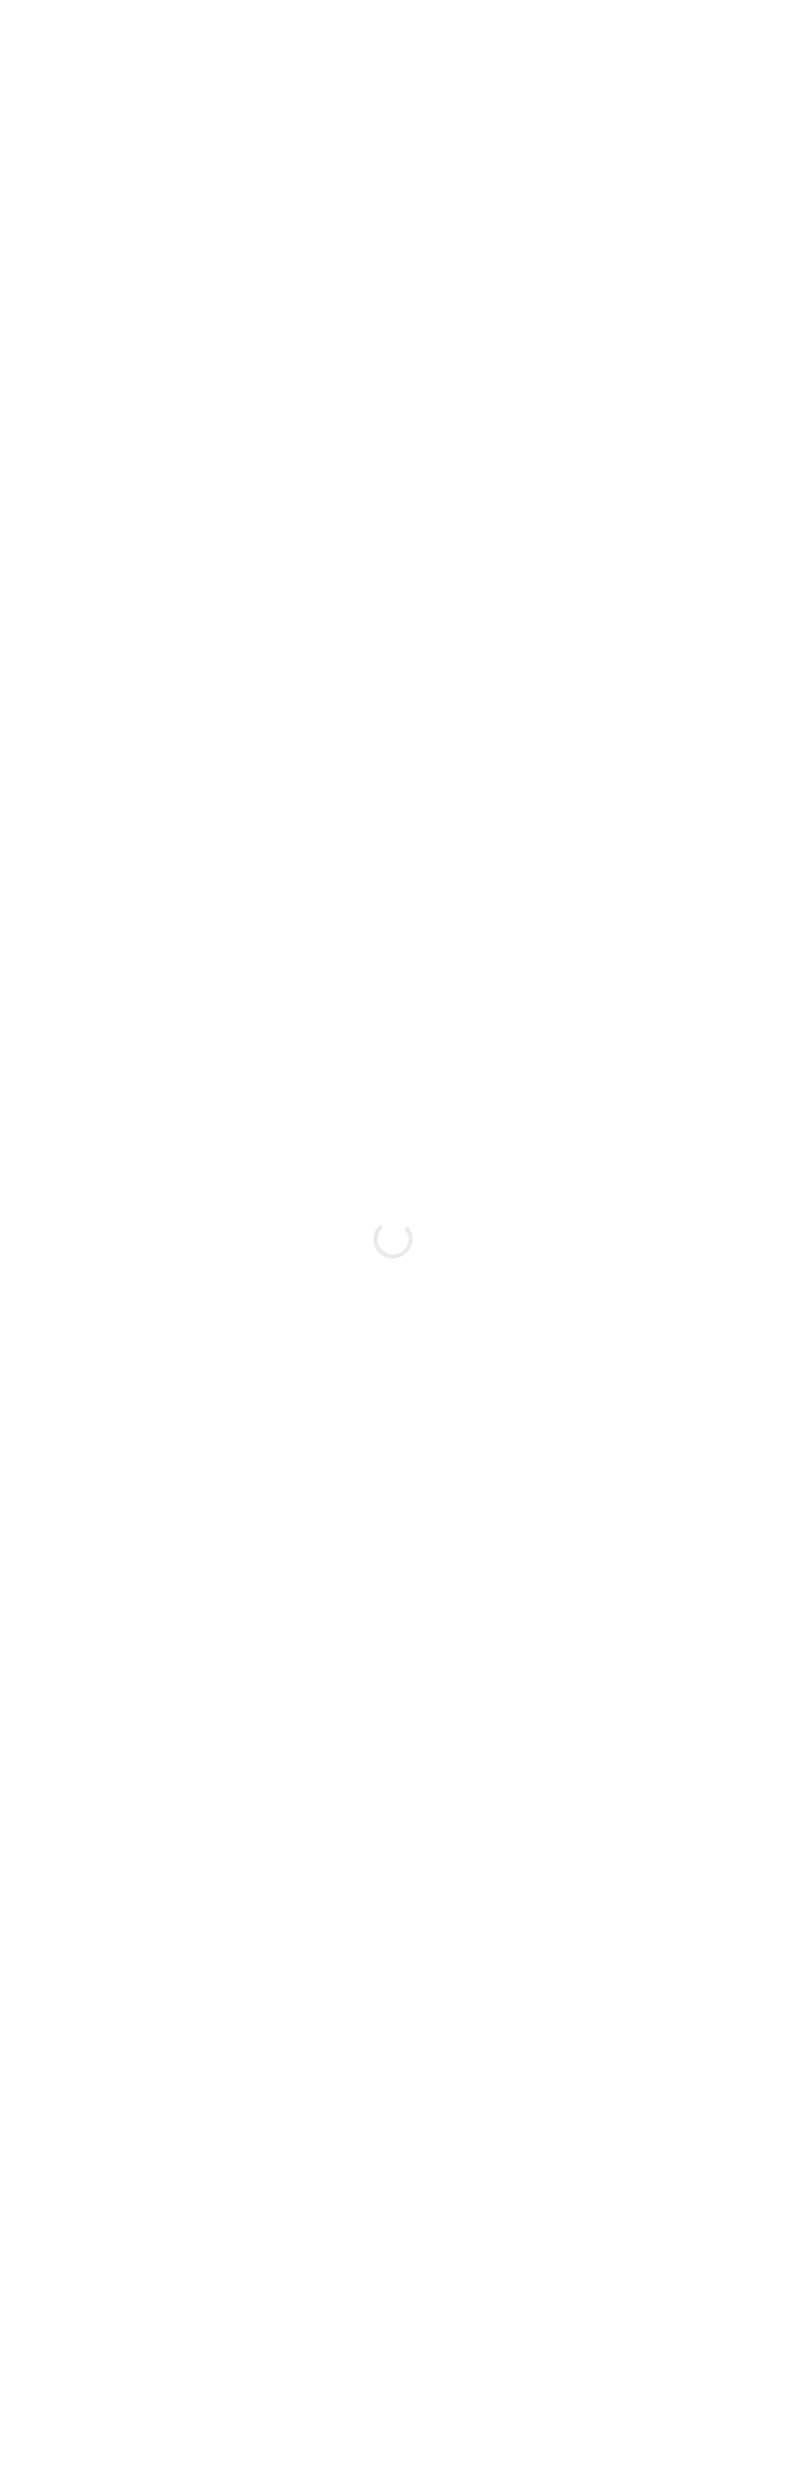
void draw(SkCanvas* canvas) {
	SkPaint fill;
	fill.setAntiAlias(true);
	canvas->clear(0xFFFFFFFF);
	fill.setStyle(SkPaint::kStroke_Style);
	fill.setStrokeWidth(4);
	fill.setColor(0xFFE9E9E9);
	canvas->drawPath(SkPathBuilder().moveTo(406, 1227.5f).cubicTo(420, 1243, 399.5f, 1265.5f, 382.5f, 1253).cubicTo(379, 1250.5f, 376.5f, 1246, 375.5f, 1241.5f).cubicTo(375, 1235.5f, 377, 1230, 381.5f, 1226).detach(), fill);
}
